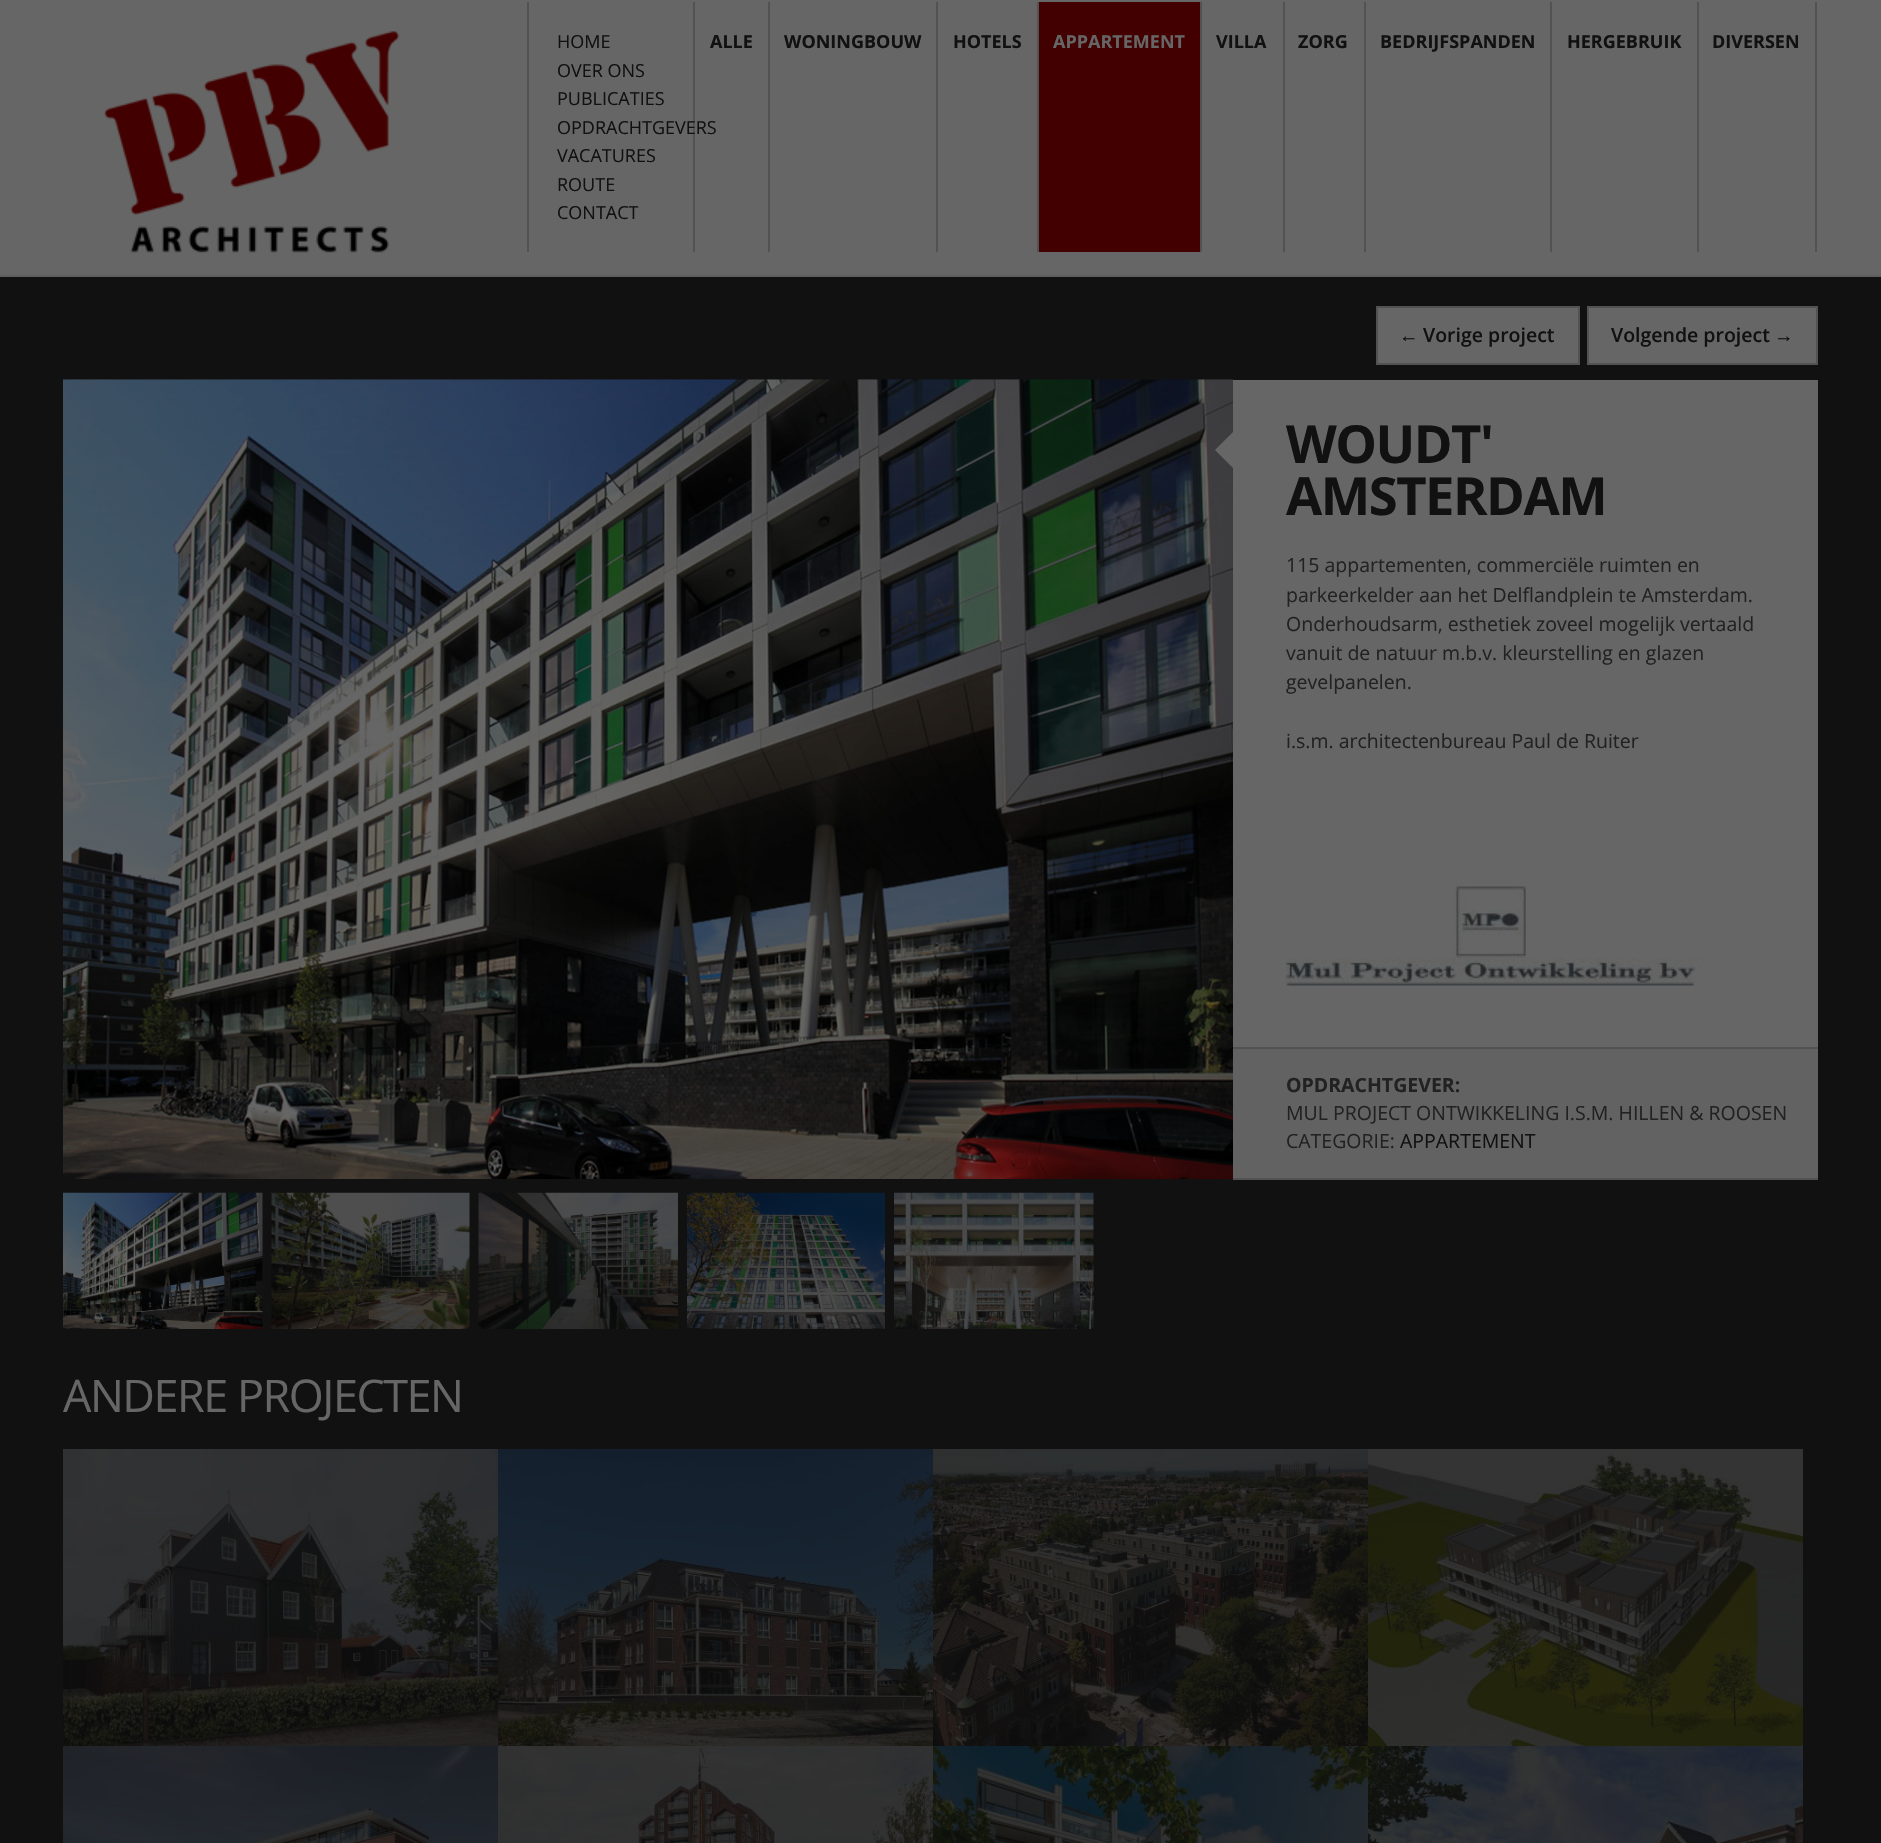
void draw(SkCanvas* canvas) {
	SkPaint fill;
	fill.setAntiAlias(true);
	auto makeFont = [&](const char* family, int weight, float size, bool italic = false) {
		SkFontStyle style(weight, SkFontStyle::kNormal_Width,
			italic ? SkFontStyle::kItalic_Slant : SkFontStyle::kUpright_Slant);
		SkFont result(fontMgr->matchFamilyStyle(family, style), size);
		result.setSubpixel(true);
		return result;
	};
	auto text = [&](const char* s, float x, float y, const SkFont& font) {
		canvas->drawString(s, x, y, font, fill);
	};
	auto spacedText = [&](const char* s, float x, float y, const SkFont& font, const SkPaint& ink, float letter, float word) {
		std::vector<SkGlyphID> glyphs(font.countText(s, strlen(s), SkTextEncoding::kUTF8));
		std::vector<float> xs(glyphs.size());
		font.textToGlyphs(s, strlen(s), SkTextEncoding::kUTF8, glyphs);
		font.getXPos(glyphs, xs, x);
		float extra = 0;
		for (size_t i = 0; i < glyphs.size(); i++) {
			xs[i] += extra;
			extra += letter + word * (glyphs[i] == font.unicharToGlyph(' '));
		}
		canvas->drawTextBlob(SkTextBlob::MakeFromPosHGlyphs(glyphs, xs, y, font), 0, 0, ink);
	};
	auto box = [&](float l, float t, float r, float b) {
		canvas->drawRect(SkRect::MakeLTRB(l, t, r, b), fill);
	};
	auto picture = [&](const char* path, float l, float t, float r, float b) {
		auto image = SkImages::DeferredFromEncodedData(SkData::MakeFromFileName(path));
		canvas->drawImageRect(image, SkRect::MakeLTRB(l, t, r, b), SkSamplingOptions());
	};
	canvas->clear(0xFF666666);
	fill.setColor(0xFF5E5E5E);
	box(0, 275, 1881, 277);
	picture("image0.png", 104, 29, 400, 253);
	fill.setColor(0xFF525252);
	box(527, 2, 529, 252);
	box(693, 2, 695, 252);
	box(768, 2, 770, 252);
	box(936, 2, 938, 252);
	fill.setColor(0xFF430000);
	box(1039, 2, 1200, 252);
	fill.setColor(0xFF525252);
	box(1037, 2, 1039, 252);
	box(1200, 2, 1202, 252);
	box(1283, 2, 1285, 252);
	box(1364, 2, 1366, 252);
	box(1550, 2, 1552, 252);
	box(1815, 2, 1817, 252);
	box(1697, 2, 1699, 252);
	fill.setColor(0xFF111111);
	box(0, 277, 1881, 1843);
	fill.setColor(0xFF666666);
	canvas->drawRect(SkRect::MakeLTRB(1377, 307, 1579, 364), fill);
	fill.setStyle(SkPaint::kStroke_Style);
	fill.setStrokeWidth(2);
	fill.setColor(0xFF525252);
	canvas->drawRect(SkRect::MakeLTRB(1377, 307, 1579, 364), fill);
	fill.setStyle(SkPaint::kFill_Style);
	fill.setColor(0xFF666666);
	canvas->drawRect(SkRect::MakeLTRB(1588, 307, 1817, 364), fill);
	fill.setStyle(SkPaint::kStroke_Style);
	fill.setColor(0xFF525252);
	canvas->drawRect(SkRect::MakeLTRB(1588, 307, 1817, 364), fill);
	fill.setStyle(SkPaint::kFill_Style);
	fill.setColor(0xFF666666);
	box(1233, 380, 1818, 1047);
	picture("image1.png", 63, 379, 1233, 1179);
	picture("image2.png", 63, 1192, 263, 1329);
	picture("image3.png", 271, 1192, 470, 1329);
	picture("image4.png", 478, 1192, 678, 1329);
	picture("image5.png", 687, 1192, 885, 1329);
	picture("image6.png", 894, 1192, 1094, 1329);
	canvas->drawPath(SkPathBuilder().moveTo(1233, 432).lineTo(1233, 468).lineTo(1215, 450).close().detach(), fill);
	picture("image7.png", 1285, 886, 1704, 986);
	fill.setColor(0xFF626262);
	box(1233, 1049, 1818, 1178);
	fill.setColor(0xFF525252);
	box(1233, 1047, 1818, 1049);
	box(1233, 1178, 1818, 1180);
	picture("image8.png", 63, 1449, 498, 1746);
	picture("image9.png", 498, 1449, 933, 1746);
	picture("image10.png", 933, 1449, 1368, 1746);
	picture("image11.png", 1368, 1449, 1803, 1746);
	picture("image12.png", 63, 1746, 498, 1843);
	picture("image13.png", 498, 1746, 933, 1843);
	picture("image14.png", 933, 1746, 1368, 1843);
	picture("image15.png", 1368, 1746, 1803, 1843);
	auto font1 = makeFont("Open Sans", 400, 18);
	fill.setColor(0xFF111111);
	text("HOME", 557, 48, font1);
	text("OVER ONS", 557, 77, font1);
	text("PUBLICATIES", 557, 105, font1);
	text("OPDRACHTGEVERS", 557, 134, font1);
	text("VACATURES", 557, 162, font1);
	text("ROUTE", 557, 191, font1);
	text("CONTACT", 557, 219, font1);
	auto font2 = makeFont("Open Sans", 700, 18);
	text("ALLE", 710, 48, font2);
	text("WONINGBOUW", 784, 48, font2);
	text("HOTELS", 953, 48, font2);
	fill.setColor(0xFF666666);
	text("APPARTEMENT", 1053, 48, font2);
	fill.setColor(0xFF111111);
	text("VILLA", 1216, 48, font2);
	text("ZORG", 1298, 48, font2);
	text("BEDRIJFSPANDEN", 1380, 48, font2);
	text("HERGEBRUIK", 1567, 48, font2);
	text("DIVERSEN", 1712, 48, font2);
	auto font3 = makeFont("Liberation Sans", 700, 19.5f);
	text("←", 1399, 342, font3);
	auto font4 = makeFont("Open Sans", 600, 19.5f);
	text("Vorige project", 1423, 342, font4);
	text("Volgende project", 1611, 342, font4);
	text("→", 1774, 342, font3);
	auto font5 = makeFont("Open Sans", 700, 52.5f);
	spacedText("WOUDT'", 1286, 463, font5, fill, -1.5f, 0);
	spacedText("AMSTERDAM", 1286, 515, font5, fill, -1.5f, 0);
	auto font6 = makeFont("Open Sans", 400, 19.5f);
	fill.setColor(0xFF222222);
	text("115 appartementen, commerciële ruimten en", 1286, 572, font6);
	text("parkeerkelder aan het Delflandplein te Amsterdam.", 1286, 602, font6);
	text("Onderhoudsarm, esthetiek zoveel mogelijk vertaald", 1286, 631, font6);
	text("vanuit de natuur m.b.v. kleurstelling en glazen", 1286, 660, font6);
	text("gevelpanelen.", 1286, 689, font6);
	text("i.s.m. architectenbureau Paul de Ruiter", 1286, 748, font6);
	auto font7 = makeFont("Open Sans", 700, 19.5f);
	text("OPDRACHTGEVER:", 1286, 1092, font7);
	text("MUL PROJECT ONTWIKKELING I.S.M. HILLEN & ROOSEN", 1286, 1120, font6);
	text("CATEGORIE:", 1286, 1148, font6);
	fill.setColor(0xFF111111);
	text("APPARTEMENT", 1400, 1148, font6);
	auto font8 = makeFont("Open Sans", 400, 45);
	fill.setColor(0xFF666666);
	spacedText("ANDERE PROJECTEN", 63, 1412, font8, fill, -1.5f, 0);
}
